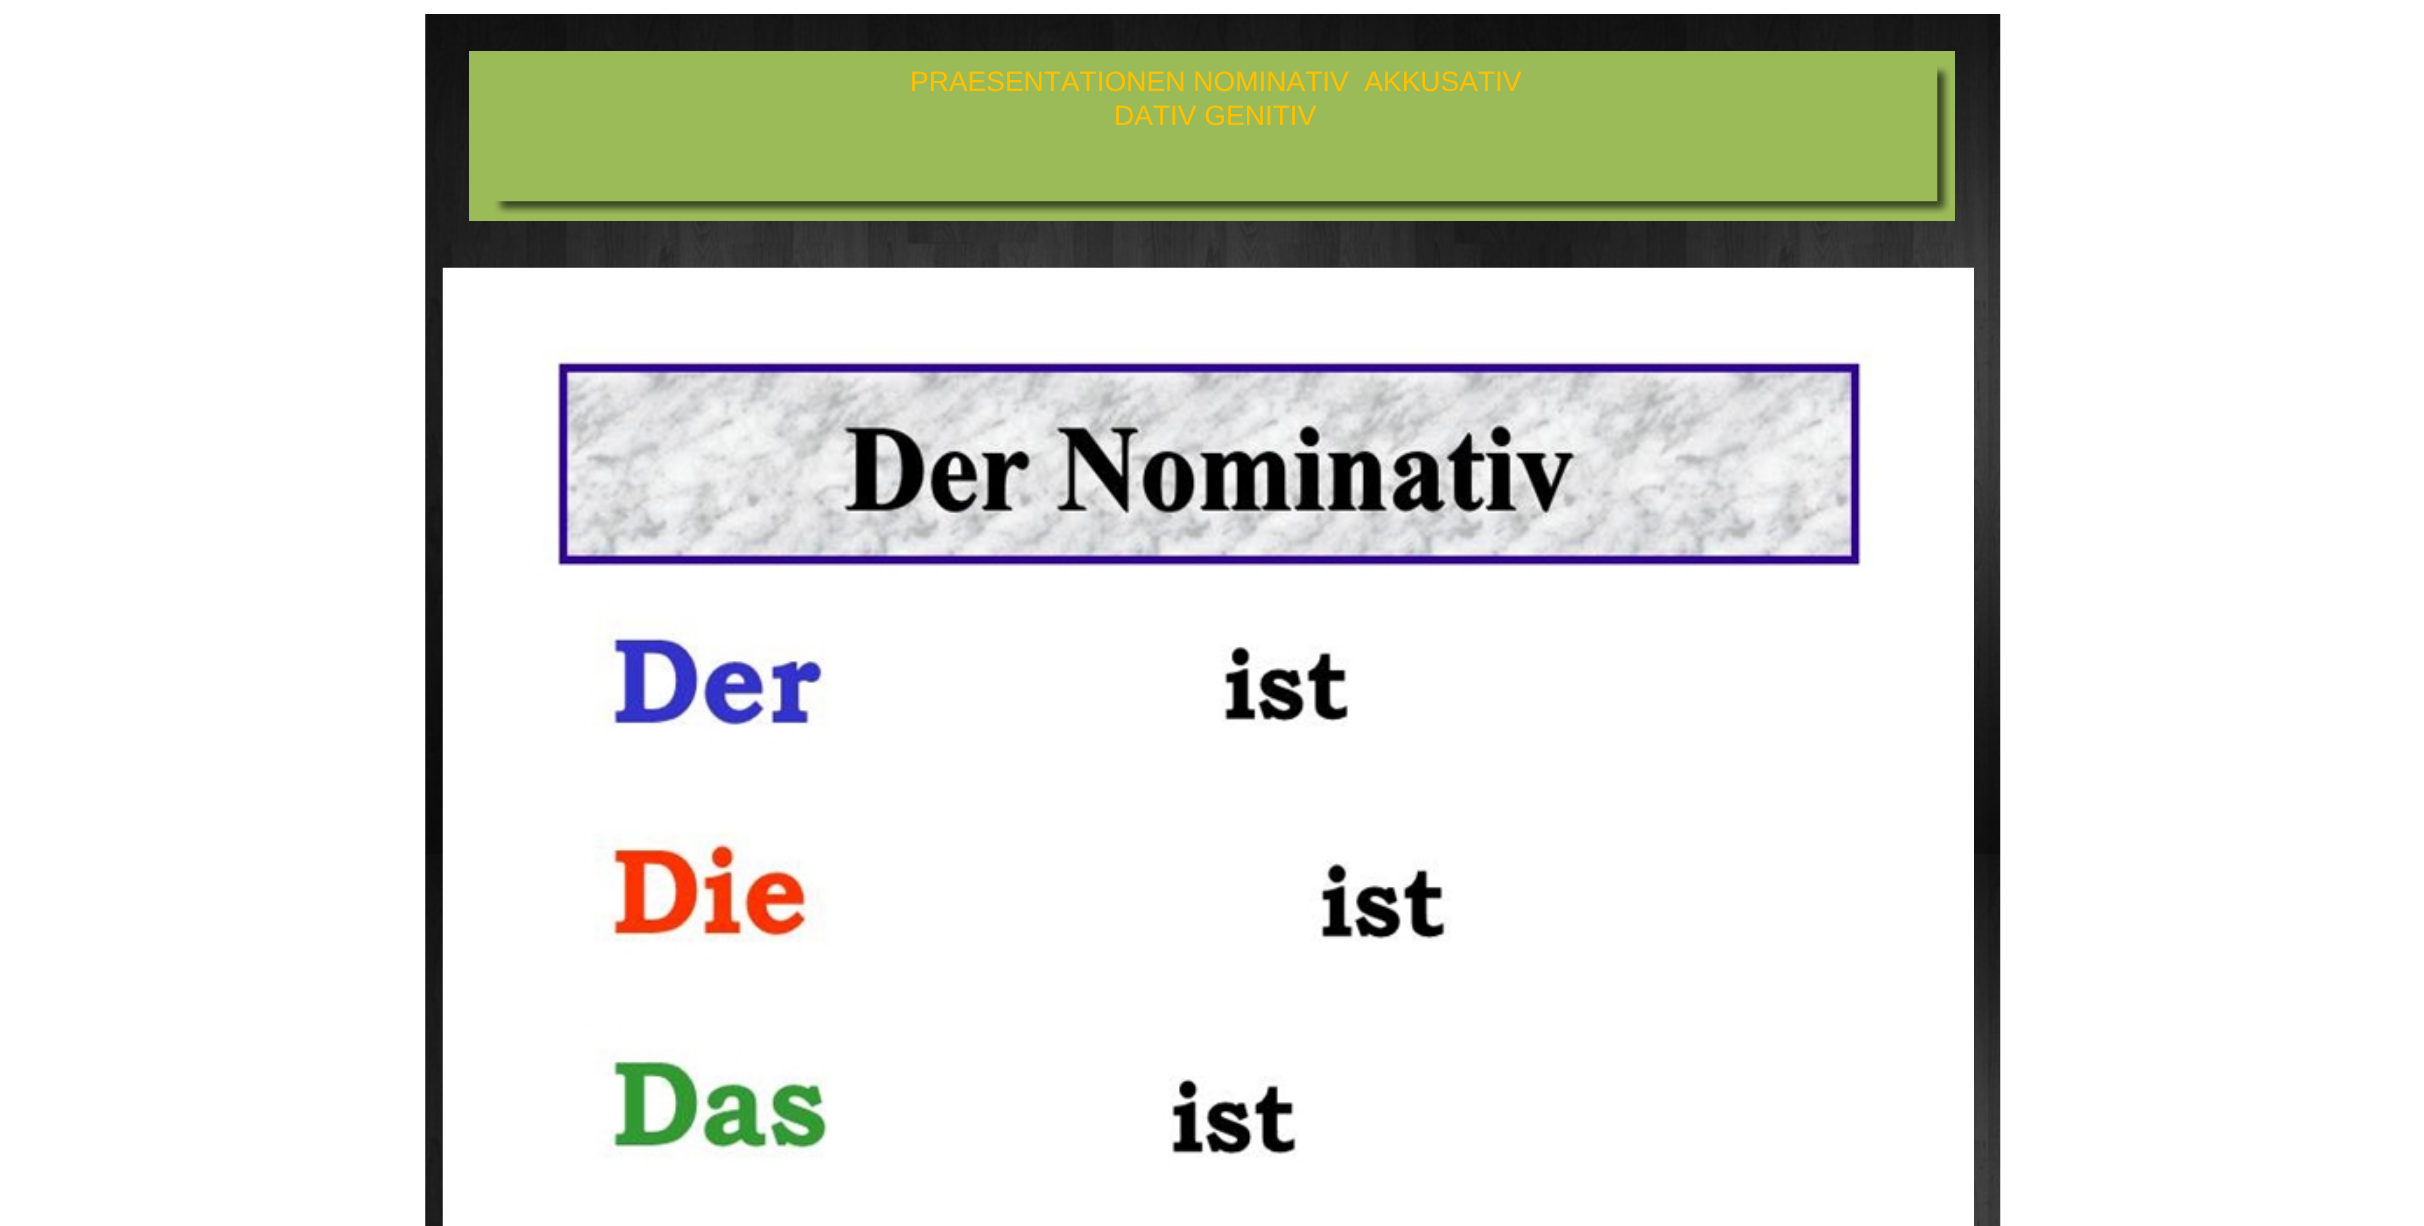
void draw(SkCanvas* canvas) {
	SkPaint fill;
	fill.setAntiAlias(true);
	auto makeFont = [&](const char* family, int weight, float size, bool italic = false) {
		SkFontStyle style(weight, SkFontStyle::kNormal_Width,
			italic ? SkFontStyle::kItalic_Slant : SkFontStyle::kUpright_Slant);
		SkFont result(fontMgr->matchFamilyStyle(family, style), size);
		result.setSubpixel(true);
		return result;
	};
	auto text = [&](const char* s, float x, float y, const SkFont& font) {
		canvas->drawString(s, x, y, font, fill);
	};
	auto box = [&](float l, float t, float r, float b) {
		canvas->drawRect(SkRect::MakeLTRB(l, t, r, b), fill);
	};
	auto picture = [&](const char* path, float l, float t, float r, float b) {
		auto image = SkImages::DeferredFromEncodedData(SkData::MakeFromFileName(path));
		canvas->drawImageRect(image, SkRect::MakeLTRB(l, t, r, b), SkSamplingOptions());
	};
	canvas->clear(0xFFFFFFFF);
	picture("image0.png", 425, 14, 2001, 1226);
	fill.setColor(0xFF9BBB59);
	box(469, 51, 1955, 221);
	picture("image1.png", 1937, 66, 1951, 202);
	picture("image2.png", 494, 201, 1938, 215);
	picture("image3.png", 1937, 201, 1950, 214);
	picture("image4.png", 442, 267, 1974, 1226);
	auto font1 = makeFont("Liberation Sans", 400, 28);
	fill.setColor(0xFFFFC000);
	text("PRAESENTATIONEN NOMINATIV  AKKUSATIV", 910, 91, font1);
	text("DATIV GENITIV", 1114, 125, font1);
}
